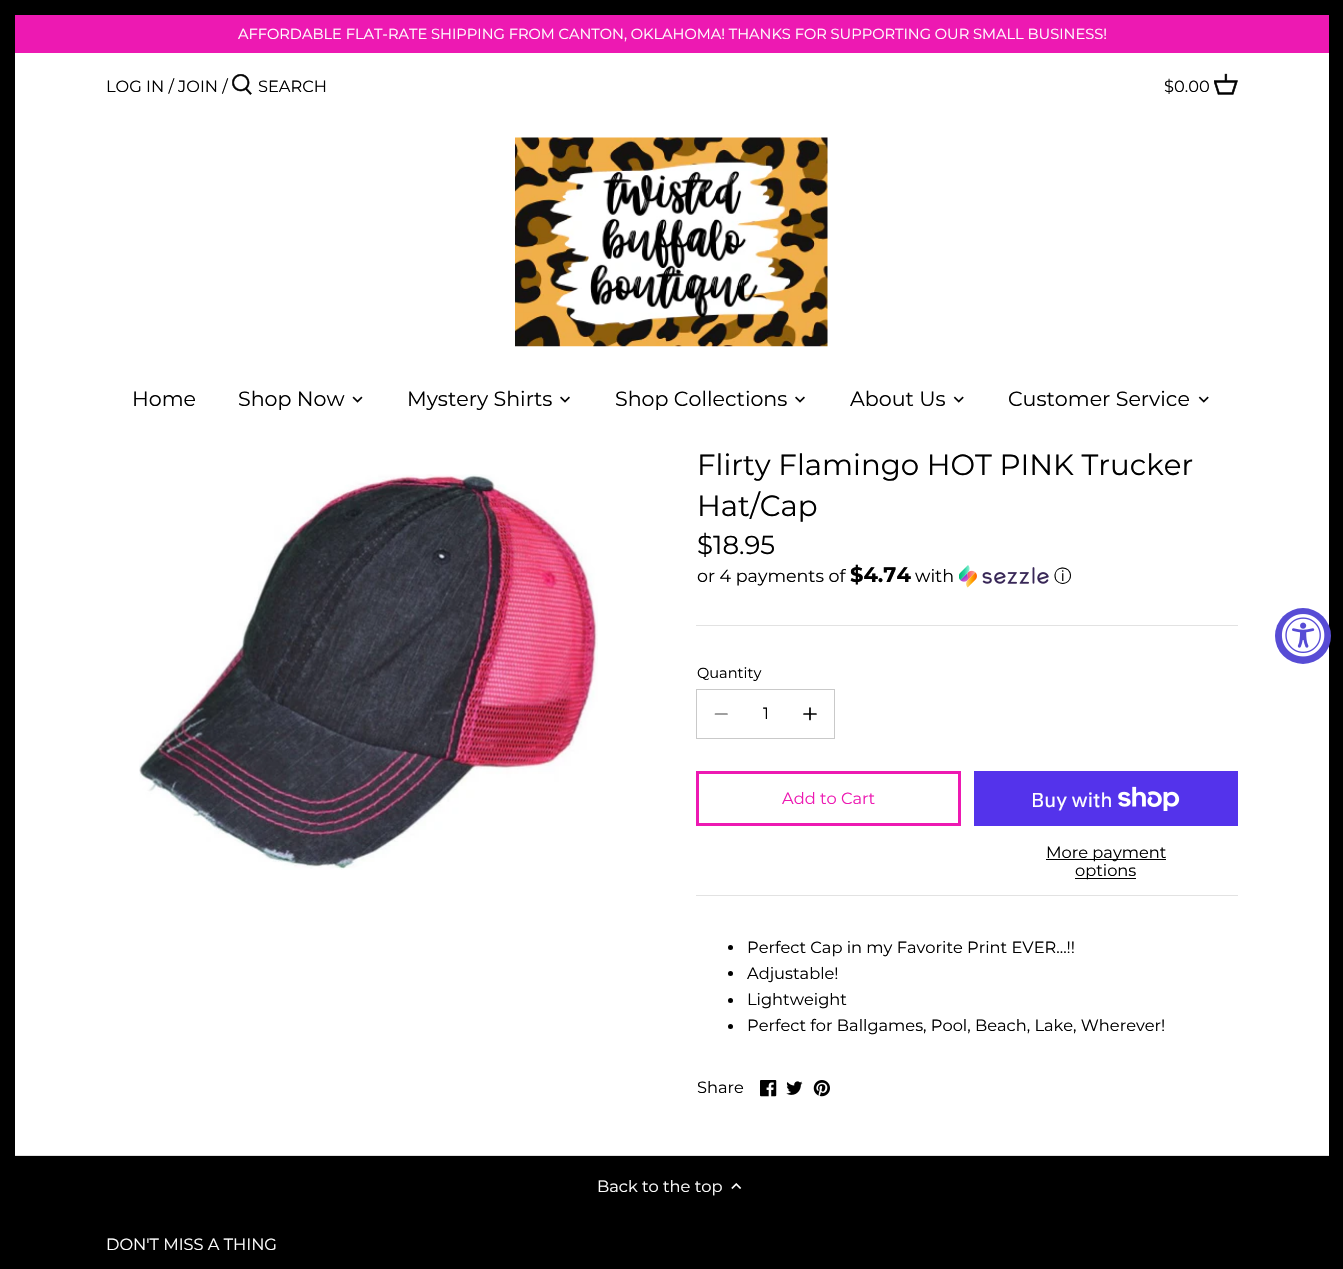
void draw(SkCanvas* canvas) {
	SkPaint fill;
	fill.setAntiAlias(true);
	auto makeFont = [&](const char* family, int weight, float size, bool italic = false) {
		SkFontStyle style(weight, SkFontStyle::kNormal_Width,
			italic ? SkFontStyle::kItalic_Slant : SkFontStyle::kUpright_Slant);
		SkFont result(fontMgr->matchFamilyStyle(family, style), size);
		result.setSubpixel(true);
		return result;
	};
	auto text = [&](const char* s, float x, float y, const SkFont& font) {
		canvas->drawString(s, x, y, font, fill);
	};
	auto box = [&](float l, float t, float r, float b) {
		canvas->drawRect(SkRect::MakeLTRB(l, t, r, b), fill);
	};
	auto picture = [&](const char* path, float l, float t, float r, float b) {
		auto image = SkImages::DeferredFromEncodedData(SkData::MakeFromFileName(path));
		canvas->drawImageRect(image, SkRect::MakeLTRB(l, t, r, b), SkSamplingOptions());
	};
	canvas->clear(0xFF000000);
	fill.setColor(0xFFFFFFFF);
	box(15, 53, 1329, 1155);
	fill.setColor(0xFFED19B2);
	box(15, 15, 1329, 53);
	picture("image0.png", 232, 74, 252, 95);
	picture("image1.png", 1214, 73, 1238, 95);
	picture("image2.png", 515, 137, 828, 347);
	picture("image3.png", 352, 396, 363, 403);
	picture("image4.png", 560, 396, 570, 403);
	picture("image4.png", 795, 396, 805, 403);
	picture("image5.png", 953, 396, 964, 403);
	picture("image5.png", 1198, 396, 1209, 403);
	picture("image6.png", 139, 474, 598, 870);
	fill.setColor(0xFFE2E2E2);
	box(696, 625, 1238, 626);
	picture("image7.png", 959, 565, 1049, 588);
	box(696, 895, 1238, 896);
	fill.setStyle(SkPaint::kStroke_Style);
	fill.setStrokeWidth(1);
	fill.setColor(0xFFC9C9C9);
	canvas->drawRect(SkRect::MakeLTRB(696.5f, 689.5f, 834.5f, 738.5f), fill);
	fill.setStrokeWidth(1.7f);
	fill.setStrokeCap(SkPaint::kRound_Cap);
	fill.setStrokeJoin(SkPaint::kRound_Join);
	fill.setColor(0xFF808080);
	canvas->drawPath(SkPathBuilder().moveTo(715.5f, 714).lineTo(727, 714).detach(), fill);
	fill.setColor(0xFF000000);
	canvas->drawPath(SkPathBuilder().moveTo(810, 708).lineTo(810, 719.5f).moveTo(804, 714).lineTo(816, 714).detach(), fill);
	fill.setStrokeWidth(3);
	fill.setStrokeCap(SkPaint::kButt_Cap);
	fill.setStrokeJoin(SkPaint::kMiter_Join);
	fill.setColor(0xFFED19B2);
	canvas->drawRect(SkRect::MakeLTRB(697.5f, 772.5f, 959.5f, 824.5f), fill);
	fill.setStyle(SkPaint::kFill_Style);
	fill.setColor(0xFF5433EB);
	box(974, 771, 1238, 826);
	picture("image8.png", 1118, 786, 1180, 811);
	fill.setColor(0xFF000000);
	box(1046, 859, 1166, 860);
	box(1075, 878, 1136, 879);
	canvas->drawCircle(730.5f, 947.5f, 2.5f, fill);
	canvas->drawCircle(730.5f, 973.5f, 2.5f, fill);
	canvas->drawCircle(730.5f, 1000.5f, 2.5f, fill);
	canvas->drawCircle(730.5f, 1026.5f, 2.5f, fill);
	picture("image9.png", 760, 1080, 777, 1097);
	picture("image10.png", 786, 1081, 803, 1095);
	picture("image11.png", 813, 1080, 830, 1097);
	fill.setColor(0xFFE2E2E2);
	box(15, 1155, 1329, 1156);
	picture("image12.png", 731, 1183, 742, 1189);
	fill.setColor(0xFF574CD5);
	canvas->drawCircle(1303, 636, 28, fill);
	picture("image13.png", 1281, 614, 1325, 657);
	auto font1 = makeFont("Montserrat", 400, 14.62f);
	fill.setColor(0xFFFFFFFF);
	text("AFFORDABLE FLAT-RATE SHIPPING FROM CANTON, OKLAHOMA! THANKS FOR SUPPORTING OUR SMALL BUSINESS!", 238, 39, font1);
	auto font2 = makeFont("Montserrat", 400, 16.25f);
	fill.setColor(0xFF000000);
	text("LOG IN / JOIN /", 106, 92, font2);
	text("SEARCH", 258, 92, font2);
	text("$0.00", 1164, 92, font2);
	auto font3 = makeFont("Montserrat", 400, 20.6f);
	text("Home", 132, 406, font3);
	text("Shop Now", 238, 406, font3);
	text("Mystery Shirts", 407, 406, font3);
	text("Shop Collections", 615, 406, font3);
	text("About Us", 850, 406, font3);
	text("Customer Service", 1008, 406, font3);
	auto font4 = makeFont("Montserrat", 400, 29.25f);
	text("Flirty Flamingo HOT PINK Trucker", 697, 475, font4);
	text("Hat/Cap", 697, 516, font4);
	auto font5 = makeFont("Montserrat", 400, 26);
	text("$18.95", 697, 554, font5);
	auto font6 = makeFont("Montserrat", 400, 17.5f);
	text("or 4 payments of", 697, 582, font6);
	auto font7 = makeFont("Montserrat", 700, 21);
	text("$4.74", 850, 582, font7);
	text("with", 915, 582, font6);
	auto font8 = makeFont("WenQuanYi Zen Hei", 500, 17.5f);
	text("ⓘ", 1054, 582, font8);
	text("Quantity", 697, 678, font1);
	text("1", 763, 719, font2);
	fill.setColor(0xFFED19B2);
	text("Add to Cart", 782, 804, font2);
	auto font9 = makeFont("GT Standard", 400, 20);
	fill.setColor(0xFFFFFFFF);
	text("Buy with", 1031, 807, font9);
	fill.setColor(0xFF000000);
	text("More payment", 1046, 858, font2);
	text("options", 1075, 876, font2);
	text("Perfect Cap in my Favorite Print EVER...!!", 747, 953, font2);
	text("Adjustable!", 747, 979, font2);
	text("Lightweight", 747, 1005, font2);
	text("Perfect for Ballgames, Pool, Beach, Lake, Wherever!", 747, 1031, font2);
	text("Share", 697, 1093, font2);
	fill.setColor(0xFFFFFFFF);
	text("Back to the top", 597, 1192, font2);
	text("DON'T MISS A THING", 106, 1250, font2);
}
